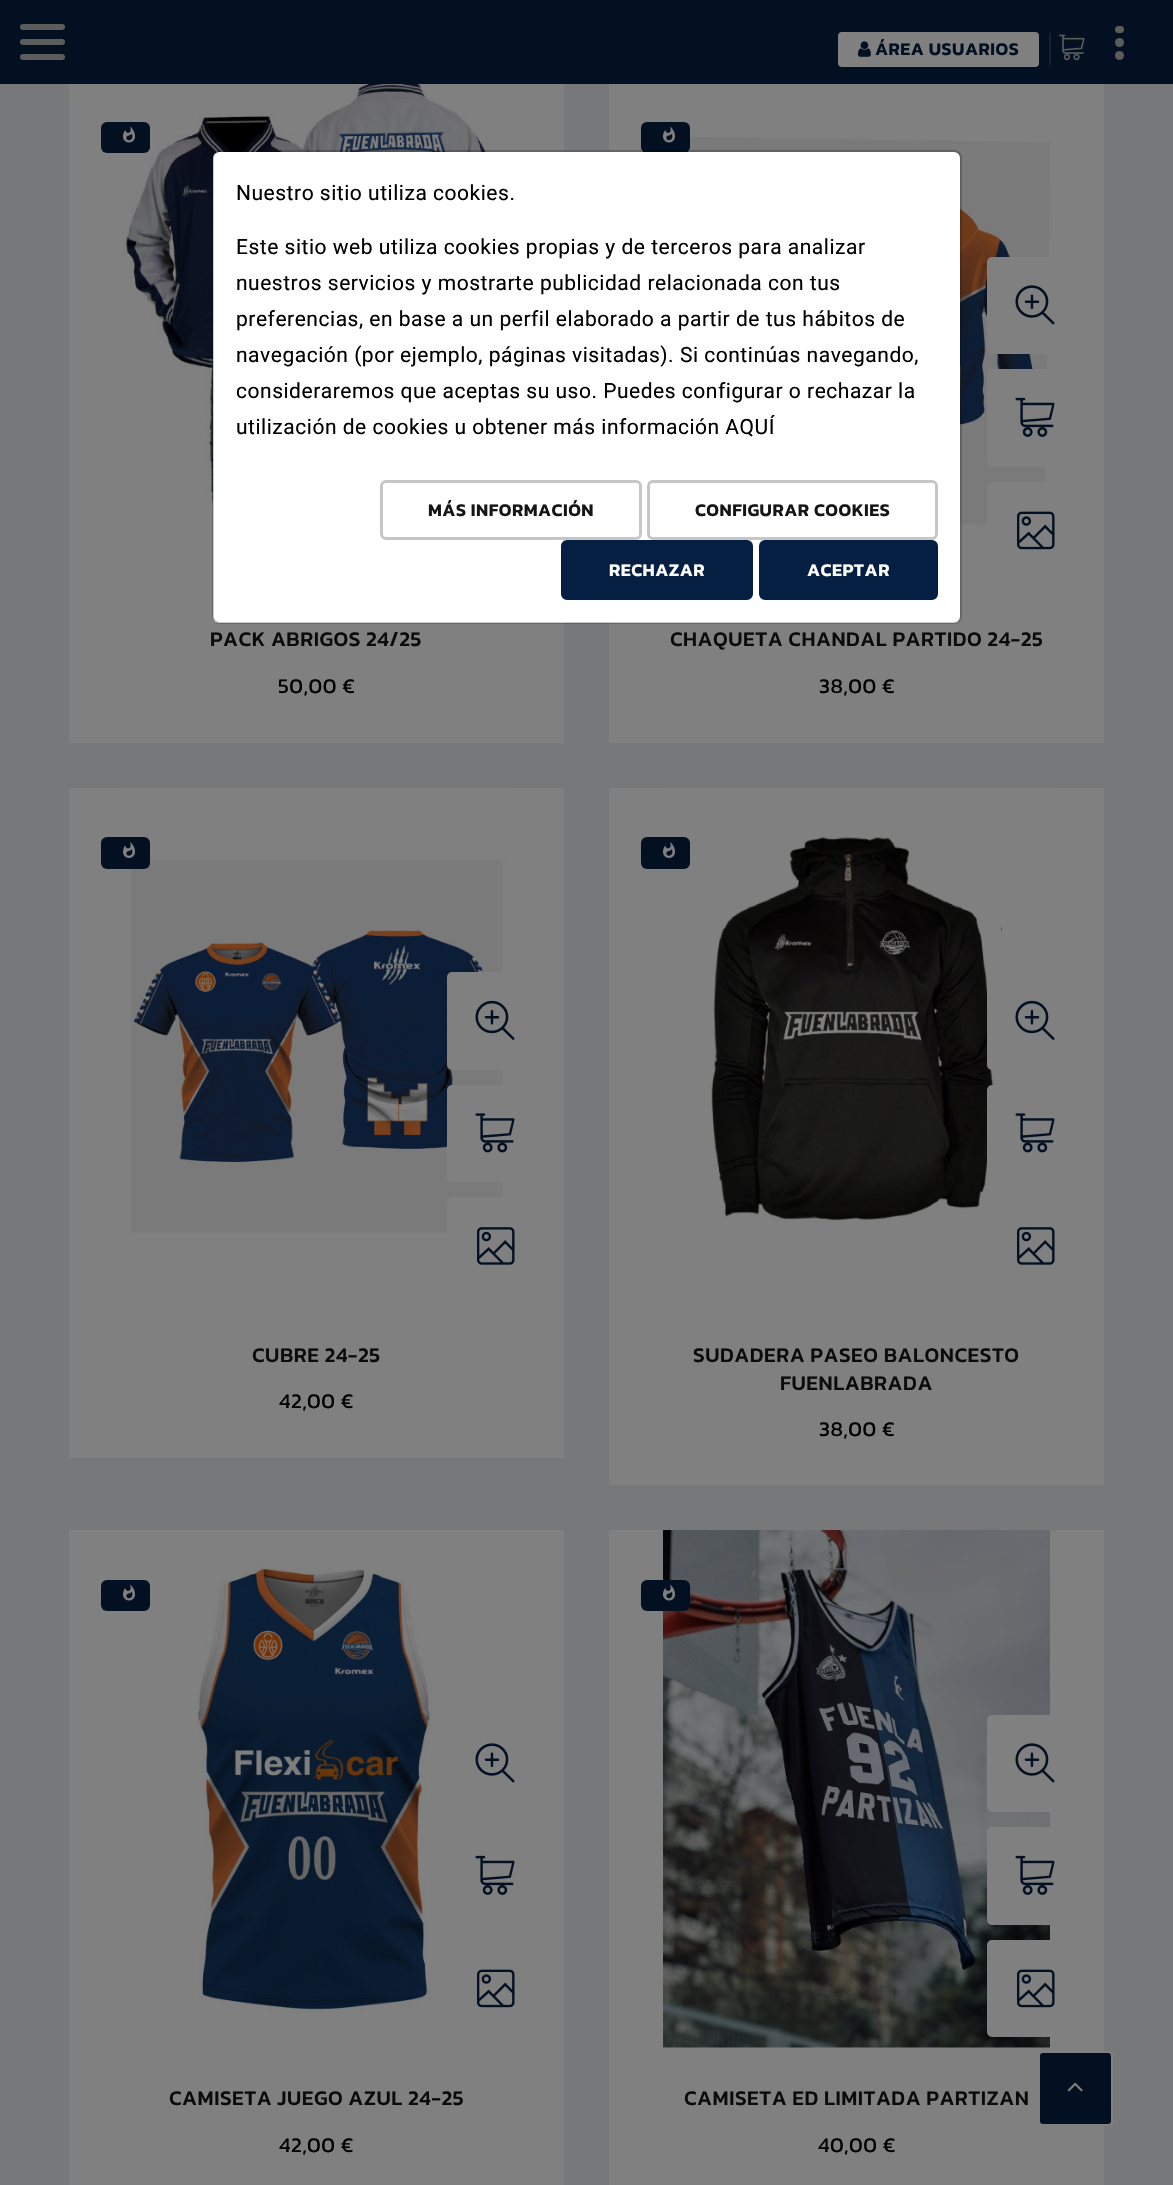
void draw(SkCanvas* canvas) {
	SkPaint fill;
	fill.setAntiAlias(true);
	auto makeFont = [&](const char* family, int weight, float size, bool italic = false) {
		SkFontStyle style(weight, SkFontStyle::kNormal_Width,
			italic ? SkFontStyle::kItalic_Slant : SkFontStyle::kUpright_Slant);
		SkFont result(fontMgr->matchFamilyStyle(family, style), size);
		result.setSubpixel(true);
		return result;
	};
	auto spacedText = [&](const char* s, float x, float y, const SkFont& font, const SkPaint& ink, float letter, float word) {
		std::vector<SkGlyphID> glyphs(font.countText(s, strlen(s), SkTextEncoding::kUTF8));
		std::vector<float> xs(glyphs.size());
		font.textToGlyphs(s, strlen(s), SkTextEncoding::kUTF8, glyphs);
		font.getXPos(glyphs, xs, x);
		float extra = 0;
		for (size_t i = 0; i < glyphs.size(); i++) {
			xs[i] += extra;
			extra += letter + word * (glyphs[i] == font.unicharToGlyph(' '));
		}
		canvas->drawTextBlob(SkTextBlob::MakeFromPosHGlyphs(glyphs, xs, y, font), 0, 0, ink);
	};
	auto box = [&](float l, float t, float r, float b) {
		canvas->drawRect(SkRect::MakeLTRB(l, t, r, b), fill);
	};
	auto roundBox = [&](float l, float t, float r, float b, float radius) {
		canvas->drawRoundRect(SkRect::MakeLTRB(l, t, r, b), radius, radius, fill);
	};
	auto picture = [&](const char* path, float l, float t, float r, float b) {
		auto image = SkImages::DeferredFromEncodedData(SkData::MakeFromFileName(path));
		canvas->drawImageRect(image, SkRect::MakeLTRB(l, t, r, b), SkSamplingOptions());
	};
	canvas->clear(0xFF77787A);
	fill.setColor(0xFF021021);
	box(0, 0, 1173, 84);
	fill.setColor(0xFF5C5C5C);
	roundBox(20, 39, 65, 45, 3);
	roundBox(20, 24, 65, 30, 3);
	roundBox(20, 54, 65, 60, 3);
	fill.setColor(0xFF808080);
	canvas->drawRoundRect(SkRect::MakeLTRB(837, 31, 1040, 68), 5, 5, fill);
	fill.setStyle(SkPaint::kStroke_Style);
	fill.setStrokeWidth(2);
	fill.setColor(0xFF021021);
	canvas->drawRoundRect(SkRect::MakeLTRB(837, 31, 1040, 68), 5, 5, fill);
	picture("image0.png", 858, 41, 871, 57);
	fill.setStyle(SkPaint::kFill_Style);
	fill.setColor(0xFF162230);
	box(1049, 33, 1051, 65);
	picture("image1.png", 1059, 34, 1085, 61);
	fill.setColor(0xFF5C5C5C);
	canvas->drawCircle(1119.5f, 42.5f, 4.5f, fill);
	roundBox(1115, 26, 1124, 33, 3.5f);
	canvas->drawCircle(1119.5f, 55.5f, 4.5f, fill);
	fill.setColor(0xFF808080);
	box(69, 84, 564, 743);
	picture("image2.png", 123, 84, 506, 569);
	fill.setColor(0xFF021021);
	roundBox(101, 122, 150, 153, 6);
	picture("image3.png", 123, 126, 135, 143);
	fill.setColor(0xFF808080);
	box(609, 84, 1104, 743);
	picture("image4.png", 687, 137, 1050, 526);
	fill.setColor(0xFF021021);
	roundBox(641, 122, 690, 153, 6);
	picture("image3.png", 663, 126, 675, 143);
	fill.setColor(0xFF808080);
	roundBox(987, 257, 1085, 354, 5);
	picture("image5.png", 1015, 285, 1055, 325);
	roundBox(987, 369, 1085, 467, 5);
	picture("image6.png", 1015, 397, 1055, 437);
	roundBox(987, 482, 1085, 579, 5);
	picture("image7.png", 1017, 511, 1055, 550);
	box(69, 788, 564, 1458);
	picture("image8.png", 123, 787, 510, 1233);
	fill.setColor(0xFF021021);
	roundBox(101, 837, 150, 869, 6);
	picture("image9.png", 123, 842, 135, 858);
	fill.setColor(0xFF808080);
	roundBox(447, 972, 545, 1070, 5);
	picture("image10.png", 475, 1000, 515, 1040);
	roundBox(447, 1085, 545, 1182, 5);
	picture("image11.png", 475, 1113, 515, 1153);
	roundBox(447, 1197, 545, 1295, 5);
	picture("image12.png", 477, 1227, 515, 1265);
	box(609, 788, 1104, 1485);
	picture("image13.png", 663, 787, 1050, 1221);
	fill.setColor(0xFF021021);
	roundBox(641, 837, 690, 869, 6);
	picture("image9.png", 663, 842, 675, 858);
	fill.setColor(0xFF808080);
	roundBox(987, 972, 1085, 1070, 5);
	picture("image10.png", 1015, 1000, 1055, 1040);
	roundBox(987, 1085, 1085, 1182, 5);
	picture("image11.png", 1015, 1113, 1055, 1153);
	picture("image12.png", 1017, 1227, 1055, 1265);
	box(69, 1530, 564, 2185);
	fill.setColor(0xFF021021);
	roundBox(101, 1580, 150, 1611, 6);
	picture("image3.png", 123, 1584, 135, 1601);
	picture("image14.png", 197, 1564, 432, 2013);
	picture("image5.png", 475, 1743, 515, 1783);
	picture("image6.png", 475, 1855, 515, 1895);
	picture("image7.png", 477, 1969, 515, 2008);
	fill.setColor(0xFF808080);
	box(609, 1530, 1104, 2185);
	picture("image15.png", 663, 1530, 1050, 2048);
	fill.setColor(0xFF021021);
	roundBox(641, 1580, 690, 1611, 6);
	picture("image3.png", 663, 1584, 675, 1601);
	fill.setColor(0xFF808080);
	roundBox(987, 1715, 1085, 1812, 5);
	picture("image5.png", 1015, 1743, 1055, 1783);
	roundBox(987, 1827, 1085, 1925, 5);
	picture("image6.png", 1015, 1855, 1055, 1895);
	roundBox(987, 1940, 1085, 2037, 5);
	picture("image7.png", 1017, 1969, 1055, 2008);
	fill.setColor(0xFFFFFFFF);
	roundBox(213, 152, 960, 623, 6);
	fill.setStyle(SkPaint::kStroke_Style);
	fill.setColor(0x33000000);
	canvas->drawRoundRect(SkRect::MakeLTRB(213, 151, 961, 623), 7, 7, fill);
	fill.setStrokeWidth(3);
	fill.setColor(0xFFC6C6C6);
	canvas->drawRoundRect(SkRect::MakeLTRB(381.5f, 481.5f, 640.5f, 538.5f), 4.5f, 4.5f, fill);
	canvas->drawRoundRect(SkRect::MakeLTRB(648.5f, 481.5f, 936.5f, 538.5f), 4.5f, 4.5f, fill);
	fill.setStyle(SkPaint::kFill_Style);
	fill.setColor(0xFF041F42);
	canvas->drawRoundRect(SkRect::MakeLTRB(562.5f, 541.5f, 751.5f, 598.5f), 4.5f, 4.5f, fill);
	fill.setStyle(SkPaint::kStroke_Style);
	canvas->drawRoundRect(SkRect::MakeLTRB(562.5f, 541.5f, 751.5f, 598.5f), 4.5f, 4.5f, fill);
	fill.setStyle(SkPaint::kFill_Style);
	canvas->drawRoundRect(SkRect::MakeLTRB(760.5f, 541.5f, 936.5f, 598.5f), 4.5f, 4.5f, fill);
	fill.setStyle(SkPaint::kStroke_Style);
	canvas->drawRoundRect(SkRect::MakeLTRB(760.5f, 541.5f, 936.5f, 598.5f), 4.5f, 4.5f, fill);
	fill.setStyle(SkPaint::kFill_Style);
	fill.setColor(0xFF021021);
	canvas->drawRoundRect(SkRect::MakeLTRB(1039, 2052, 1112, 2125), 4, 4, fill);
	fill.setStyle(SkPaint::kStroke_Style);
	fill.setStrokeWidth(2);
	fill.setColor(0xFF808080);
	canvas->drawRoundRect(SkRect::MakeLTRB(1039, 2052, 1112, 2125), 4, 4, fill);
	picture("image16.png", 1067, 2082, 1083, 2092);
	auto font1 = makeFont("Kanit", 600, 18);
	fill.setStyle(SkPaint::kFill_Style);
	fill.setColor(0xFF021021);
	spacedText("ÁREA USUARIOS", 875, 55, font1, fill, 0.5f, 0);
	auto font2 = makeFont("Kanit", 500, 21);
	fill.setColor(0xFF0B0B0B);
	spacedText("PACK ABRIGOS 24/25", 210, 646, font2, fill, 0.52f, 0);
	auto font3 = makeFont("Kanit", 400, 21);
	fill.setColor(0xFF000000);
	spacedText("50,00 €", 278, 693, font3, fill, 0.52f, 0);
	fill.setColor(0xFF0B0B0B);
	spacedText("CHAQUETA CHANDAL PARTIDO 24-25", 670, 646, font2, fill, 0.52f, 0);
	fill.setColor(0xFF000000);
	spacedText("38,00 €", 819, 693, font3, fill, 0.52f, 0);
	fill.setColor(0xFF0B0B0B);
	spacedText("CUBRE 24-25", 252, 1362, font2, fill, 0.52f, 0);
	fill.setColor(0xFF000000);
	spacedText("42,00 €", 279, 1408, font3, fill, 0.52f, 0);
	fill.setColor(0xFF0B0B0B);
	spacedText("SUDADERA PASEO BALONCESTO", 693, 1362, font2, fill, 0.52f, 0);
	spacedText("FUENLABRADA", 780, 1390, font2, fill, 0.52f, 0);
	fill.setColor(0xFF000000);
	spacedText("38,00 €", 819, 1436, font3, fill, 0.52f, 0);
	fill.setColor(0xFF0B0B0B);
	spacedText("CAMISETA JUEGO AZUL 24-25", 169, 2105, font2, fill, 0.52f, 0);
	fill.setColor(0xFF000000);
	spacedText("42,00 €", 279, 2152, font3, fill, 0.52f, 0);
	fill.setColor(0xFF0B0B0B);
	spacedText("CAMISETA ED LIMITADA PARTIZAN", 684, 2105, font2, fill, 0.52f, 0);
	fill.setColor(0xFF000000);
	spacedText("40,00 €", 818, 2152, font3, fill, 0.52f, 0);
	auto font4 = makeFont("Roboto", 400, 21);
	spacedText("Nuestro sitio utiliza cookies.", 236, 200, font4, fill, 0.52f, 0);
	spacedText("Este sitio web utiliza cookies propias y de terceros para analizar", 236, 254, font4, fill, 0.52f, 0);
	spacedText("nuestros servicios y mostrarte publicidad relacionada con tus", 236, 290, font4, fill, 0.52f, 0);
	spacedText("preferencias, en base a un perfil elaborado a partir de tus hábitos de", 236, 326, font4, fill, 0.52f, 0);
	spacedText("navegación (por ejemplo, páginas visitadas). Si continúas navegando,", 236, 362, font4, fill, 0.52f, 0);
	spacedText("consideraremos que aceptas su uso. Puedes configurar o rechazar la", 236, 398, font4, fill, 0.52f, 0);
	spacedText("utilización de cookies u obtener más información AQUÍ", 236, 434, font4, fill, 0.52f, 0);
	fill.setColor(0xFF151515);
	spacedText("MÁS INFORMACIÓN", 428, 516, font1, fill, 0.5f, 0);
	spacedText("CONFIGURAR COOKIES", 695, 516, font1, fill, 0.5f, 0);
	fill.setColor(0xFFFFFFFF);
	spacedText("RECHAZAR", 609, 576, font1, fill, 0.5f, 0);
	spacedText("ACEPTAR", 807, 576, font1, fill, 0.5f, 0);
}
